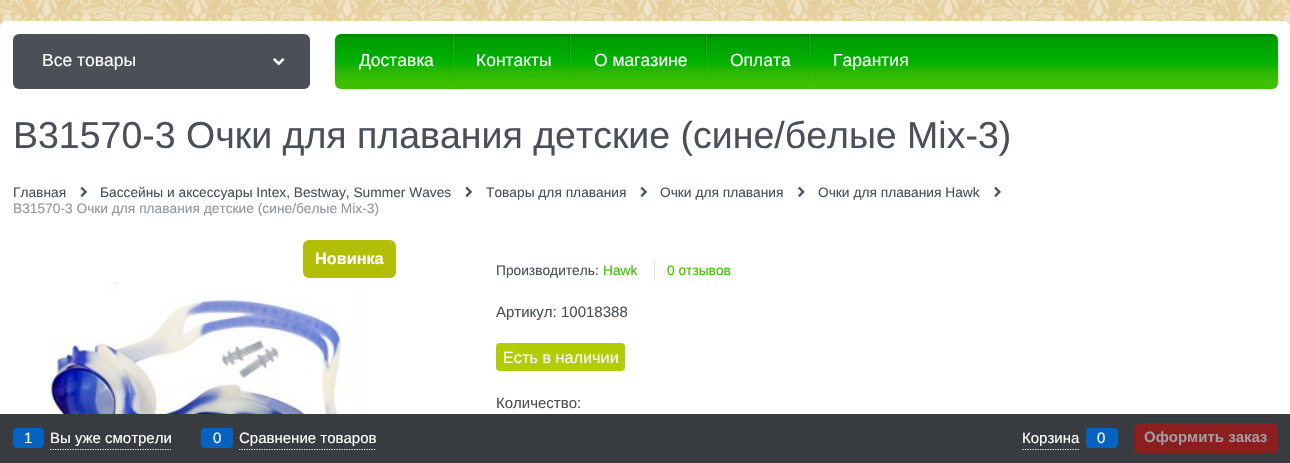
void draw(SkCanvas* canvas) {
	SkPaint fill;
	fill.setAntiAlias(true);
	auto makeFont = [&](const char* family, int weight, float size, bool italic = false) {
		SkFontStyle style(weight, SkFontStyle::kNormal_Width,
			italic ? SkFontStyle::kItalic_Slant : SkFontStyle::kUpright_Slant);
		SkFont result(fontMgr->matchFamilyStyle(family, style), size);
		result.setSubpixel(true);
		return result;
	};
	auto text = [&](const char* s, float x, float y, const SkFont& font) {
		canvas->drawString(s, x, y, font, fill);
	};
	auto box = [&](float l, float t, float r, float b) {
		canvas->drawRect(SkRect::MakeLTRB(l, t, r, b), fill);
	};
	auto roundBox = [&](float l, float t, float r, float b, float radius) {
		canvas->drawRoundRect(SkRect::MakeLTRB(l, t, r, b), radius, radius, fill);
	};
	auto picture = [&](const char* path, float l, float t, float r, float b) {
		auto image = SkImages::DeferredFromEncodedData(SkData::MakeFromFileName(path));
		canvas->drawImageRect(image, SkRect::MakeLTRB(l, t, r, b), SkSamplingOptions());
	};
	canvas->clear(0xFFFFFFFF);
	picture("image0.png", 0, 0, 1290, 27);
	fill.setColor(0xFFFFFFFF);
	roundBox(0, 21, 1290, 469, 6);
	fill.setColor(0xFF4B4F58);
	roundBox(13, 34, 310, 89, 6);
	picture("image1.png", 273, 58, 285, 66);
	{
		const SkColor colors[] = {0xFF008400, 0xFF019A01, 0xFF009E00, 0xFF00B201, 0xFF04B300, 0xFF20B501, 0xFF21B700, 0xFF2EB802, 0xFF2DBC00, 0xFF3ABC00, 0xFF3EBF00, 0xFF3FC001};
		const float stops[] = {0, 0.08f, 0.11f, 0.51f, 0.54f, 0.62f, 0.65f, 0.7f, 0.78f, 0.84f, 0.86f, 1};
		const SkPoint ends[] = {{806, 34}, {806, 89}};
		fill.setShader(SkGradientShader::MakeLinear(ends, colors, stops, 12, SkTileMode::kClamp));
		fill.setAlpha(255);
	}
	roundBox(335, 34, 1278, 89, 6);
	{
		const SkColor colors[] = {0x24FFFFFF, 0x05FFFFFF, 0x00FFFFFF};
		const float stops[] = {0, 0.72f, 1};
		const SkPoint ends[] = {{453, 34}, {453, 89}};
		fill.setShader(SkGradientShader::MakeLinear(ends, colors, stops, 3, SkTileMode::kClamp));
		fill.setAlpha(255);
	}
	box(453, 34, 454, 73);
	{
		const SkColor colors[] = {0x63393939, 0x54393939, 0x1F393939, 0x03393939, 0x03FFFFFF, 0x00FFFFFF};
		const float stops[] = {0, 0.17f, 0.61f, 0.96f, 0.98f, 1};
		const SkPoint ends[] = {{452, 34}, {452, 89}};
		fill.setShader(SkGradientShader::MakeLinear(ends, colors, stops, 6, SkTileMode::kClamp));
		fill.setAlpha(255);
	}
	box(451, 34, 452, 89);
	{
		const SkColor colors[] = {0x24FFFFFF, 0x05FFFFFF, 0x00FFFFFF};
		const float stops[] = {0, 0.72f, 1};
		const SkPoint ends[] = {{571, 34}, {571, 89}};
		fill.setShader(SkGradientShader::MakeLinear(ends, colors, stops, 3, SkTileMode::kClamp));
		fill.setAlpha(255);
	}
	box(570, 34, 571, 73);
	{
		const SkColor colors[] = {0x63393939, 0x54393939, 0x1F393939, 0x03393939, 0x03FFFFFF, 0x00FFFFFF};
		const float stops[] = {0, 0.17f, 0.61f, 0.96f, 0.98f, 1};
		const SkPoint ends[] = {{569, 34}, {569, 89}};
		fill.setShader(SkGradientShader::MakeLinear(ends, colors, stops, 6, SkTileMode::kClamp));
		fill.setAlpha(255);
	}
	box(569, 34, 570, 89);
	{
		const SkColor colors[] = {0x24FFFFFF, 0x05FFFFFF, 0x00FFFFFF};
		const float stops[] = {0, 0.72f, 1};
		const SkPoint ends[] = {{707, 34}, {707, 89}};
		fill.setShader(SkGradientShader::MakeLinear(ends, colors, stops, 3, SkTileMode::kClamp));
		fill.setAlpha(255);
	}
	box(706, 34, 707, 73);
	{
		const SkColor colors[] = {0x63393939, 0x54393939, 0x1F393939, 0x03393939, 0x03FFFFFF, 0x00FFFFFF};
		const float stops[] = {0, 0.17f, 0.61f, 0.96f, 0.98f, 1};
		const SkPoint ends[] = {{706, 34}, {706, 89}};
		fill.setShader(SkGradientShader::MakeLinear(ends, colors, stops, 6, SkTileMode::kClamp));
		fill.setAlpha(255);
	}
	box(705, 34, 706, 89);
	{
		const SkColor colors[] = {0x24FFFFFF, 0x05FFFFFF, 0x00FFFFFF};
		const float stops[] = {0, 0.72f, 1};
		const SkPoint ends[] = {{809, 34}, {809, 89}};
		fill.setShader(SkGradientShader::MakeLinear(ends, colors, stops, 3, SkTileMode::kClamp));
		fill.setAlpha(255);
	}
	box(809, 34, 810, 73);
	{
		const SkColor colors[] = {0x63393939, 0x54393939, 0x1F393939, 0x03393939, 0x03FFFFFF, 0x00FFFFFF};
		const float stops[] = {0, 0.17f, 0.61f, 0.96f, 0.98f, 1};
		const SkPoint ends[] = {{808, 34}, {808, 89}};
		fill.setShader(SkGradientShader::MakeLinear(ends, colors, stops, 6, SkTileMode::kClamp));
		fill.setAlpha(255);
	}
	box(808, 34, 809, 89);
	picture("image2.png", 80, 186, 87, 197);
	picture("image2.png", 465, 186, 472, 197);
	picture("image2.png", 640, 186, 647, 197);
	picture("image3.png", 798, 186, 805, 197);
	picture("image4.png", 994, 186, 1001, 197);
	fill.setShader(nullptr);
	fill.setColor(0xFFB3BE08);
	roundBox(303, 240, 396, 278, 6);
	picture("image5.png", 50, 281, 363, 414);
	fill.setColor(0xFFE2E3E4);
	box(654, 260, 655, 281);
	fill.setColor(0xFFB1CD03);
	roundBox(496, 343, 625, 371, 4);
	fill.setColor(0xFF383C40);
	box(0, 414, 1290, 463);
	fill.setStyle(SkPaint::kStroke_Style);
	fill.setStrokeWidth(1.2f);
	fill.setColor(0xFFFFFFFF);
	fill.setPathEffect(SkDashPathEffect::Make({{1.25f, 1.25f}}, 0));
	canvas->drawPath(SkPathBuilder().moveTo(50, 449.5f).lineTo(171, 449.5f).detach(), fill);
	fill.setPathEffect(nullptr);
	fill.setStyle(SkPaint::kFill_Style);
	fill.setColor(0xFF0662C1);
	roundBox(13, 428, 44, 448, 4);
	fill.setStyle(SkPaint::kStroke_Style);
	fill.setColor(0xFFFFFFFF);
	fill.setPathEffect(SkDashPathEffect::Make({{1.25f, 1.25f}}, 0));
	canvas->drawPath(SkPathBuilder().moveTo(239, 449.5f).lineTo(376, 449.5f).detach(), fill);
	fill.setPathEffect(nullptr);
	fill.setStyle(SkPaint::kFill_Style);
	fill.setColor(0xFF0662C1);
	roundBox(201, 428, 233, 448, 4);
	fill.setStyle(SkPaint::kStroke_Style);
	fill.setColor(0xFFFFFFFF);
	fill.setPathEffect(SkDashPathEffect::Make({{1.25f, 1.25f}}, 0));
	canvas->drawPath(SkPathBuilder().moveTo(1022.5f, 449.5f).lineTo(1080, 449.5f).detach(), fill);
	fill.setPathEffect(nullptr);
	fill.setStyle(SkPaint::kFill_Style);
	fill.setColor(0xFF0662C1);
	roundBox(1086, 428, 1118, 448, 4);
	fill.setColor(0xFF8D1E20);
	roundBox(1134, 423, 1278, 454, 6);
	auto font1 = makeFont("Liberation Sans", 400, 17.5f);
	fill.setColor(0xFFFFFFFF);
	text("Все товары", 42, 66, font1);
	text("Доставка", 359, 66, font1);
	text("Контакты", 476, 66, font1);
	text("О магазине", 594, 66, font1);
	text("Оплата", 730, 66, font1);
	text("Гарантия", 833, 66, font1);
	auto font2 = makeFont("Liberation Sans", 400, 37.5f);
	fill.setColor(0xFF4B4F58);
	text("B31570-3 Очки для плавания детские (сине/белые Mix-3)", 13, 148, font2);
	auto font3 = makeFont("Liberation Sans", 400, 13.75f);
	text("Главная", 13, 197, font3);
	text("Бассейны и аксессуары Intex, Bestway, Summer Waves", 100, 197, font3);
	text("Товары для плавания", 486, 197, font3);
	text("Очки для плавания", 660, 197, font3);
	text("Очки для плавания Hawk", 818, 197, font3);
	fill.setColor(0xFF94969B);
	text("B31570-3 Очки для плавания детские (сине/белые Mix-3)", 13, 213, font3);
	auto font4 = makeFont("Liberation Sans", 700, 16.25f);
	fill.setColor(0xFFFFFFFF);
	text("Новинка", 315, 264, font4);
	fill.setColor(0xFF4B4F58);
	text("Производитель:", 496, 275, font3);
	fill.setColor(0xFF3FC001);
	text("Hawk", 603, 275, font3);
	text("0 отзывов", 667, 275, font3);
	auto font5 = makeFont("Liberation Sans", 400, 15);
	fill.setColor(0xFF4B4F58);
	text("Артикул:", 496, 317, font5);
	text("10018388", 561, 317, font5);
	auto font6 = makeFont("Liberation Sans", 400, 16.25f);
	fill.setColor(0xFFFFFFFF);
	text("Есть в наличии", 503, 363, font6);
	fill.setColor(0xFF4B4F58);
	text("Количество:", 496, 408, font5);
	fill.setColor(0xFFFFFFFF);
	text("1", 24, 443, font5);
	text("Вы уже смотрели", 50, 443, font5);
	text("0", 213, 443, font5);
	text("Сравнение товаров", 239, 443, font5);
	text("Корзина", 1022, 443, font5);
	text("0", 1097, 443, font5);
	auto font7 = makeFont("Liberation Sans", 700, 15);
	fill.setColor(0xFF9C9EA0);
	text("Оформить заказ", 1144, 442, font7);
}
